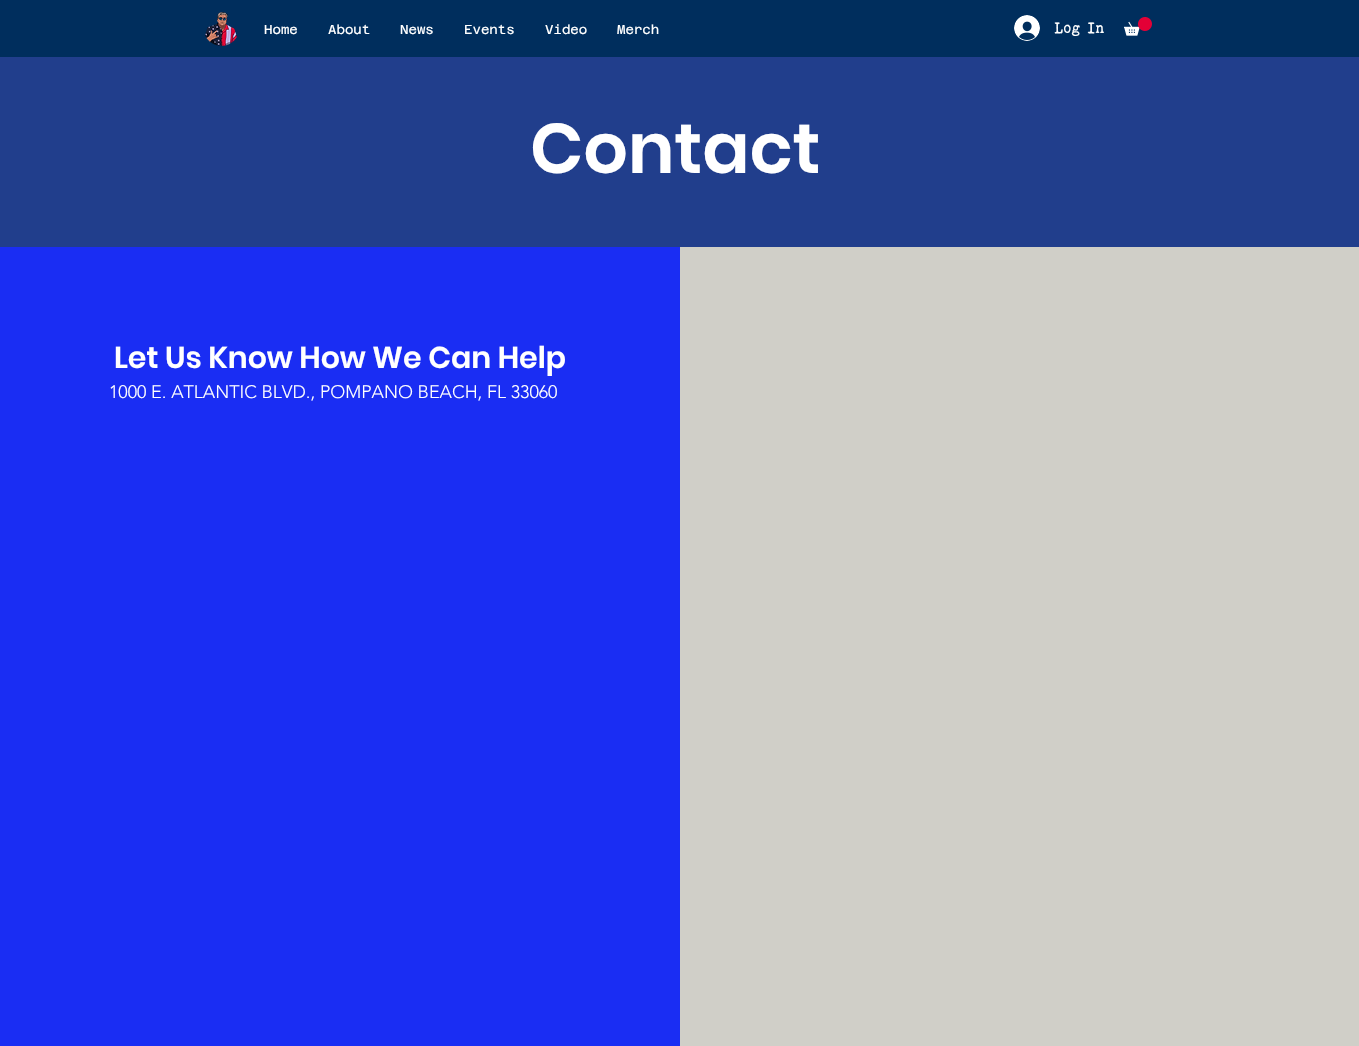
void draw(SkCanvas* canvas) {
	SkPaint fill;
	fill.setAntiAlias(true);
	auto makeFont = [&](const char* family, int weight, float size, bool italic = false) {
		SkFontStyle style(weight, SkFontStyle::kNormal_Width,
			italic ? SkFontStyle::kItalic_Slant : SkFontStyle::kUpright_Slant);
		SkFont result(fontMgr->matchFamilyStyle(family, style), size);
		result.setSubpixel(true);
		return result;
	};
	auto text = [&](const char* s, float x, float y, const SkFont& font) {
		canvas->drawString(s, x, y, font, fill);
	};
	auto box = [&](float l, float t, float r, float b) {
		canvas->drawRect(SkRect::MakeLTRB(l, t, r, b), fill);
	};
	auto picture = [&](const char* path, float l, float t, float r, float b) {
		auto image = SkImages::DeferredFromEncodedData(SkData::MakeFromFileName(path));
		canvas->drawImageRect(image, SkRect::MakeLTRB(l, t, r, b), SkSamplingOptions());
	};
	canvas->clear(0xFF213E8C);
	fill.setColor(0xFF002E5D);
	box(0, 0, 1359, 57);
	picture("image0.png", 205, 12, 237, 46);
	picture("image1.png", 1014, 15, 1040, 41);
	picture("image2.png", 1124, 17, 1152, 36);
	fill.setColor(0xFF1A2DF3);
	box(0, 247, 680, 1046);
	fill.setColor(0xFFD0CFC8);
	box(680, 247, 1359, 1046);
	auto font1 = makeFont("Azeret Mono", 400, 13);
	fill.setColor(0xFFFFFFFF);
	text("Home", 264, 34, font1);
	text("About", 328, 34, font1);
	text("News", 400, 34, font1);
	text("Events", 464, 34, font1);
	text("Video", 545, 34, font1);
	text("Merch", 617, 34, font1);
	auto font2 = makeFont("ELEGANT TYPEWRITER", 400, 16);
	text("Log In", 1054, 33, font2);
	auto font3 = makeFont("Poppins", 600, 70);
	text("Contact", 530, 173, font3);
	auto font4 = makeFont("Poppins", 600, 30);
	text("Let Us Know How We Can Help", 114, 368, font4);
	auto font5 = makeFont("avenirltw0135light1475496", 300, 18);
	text("1000 E. ATLANTIC BLVD., POMPANO BEACH, FL 33060", 109, 398, font5);
}
